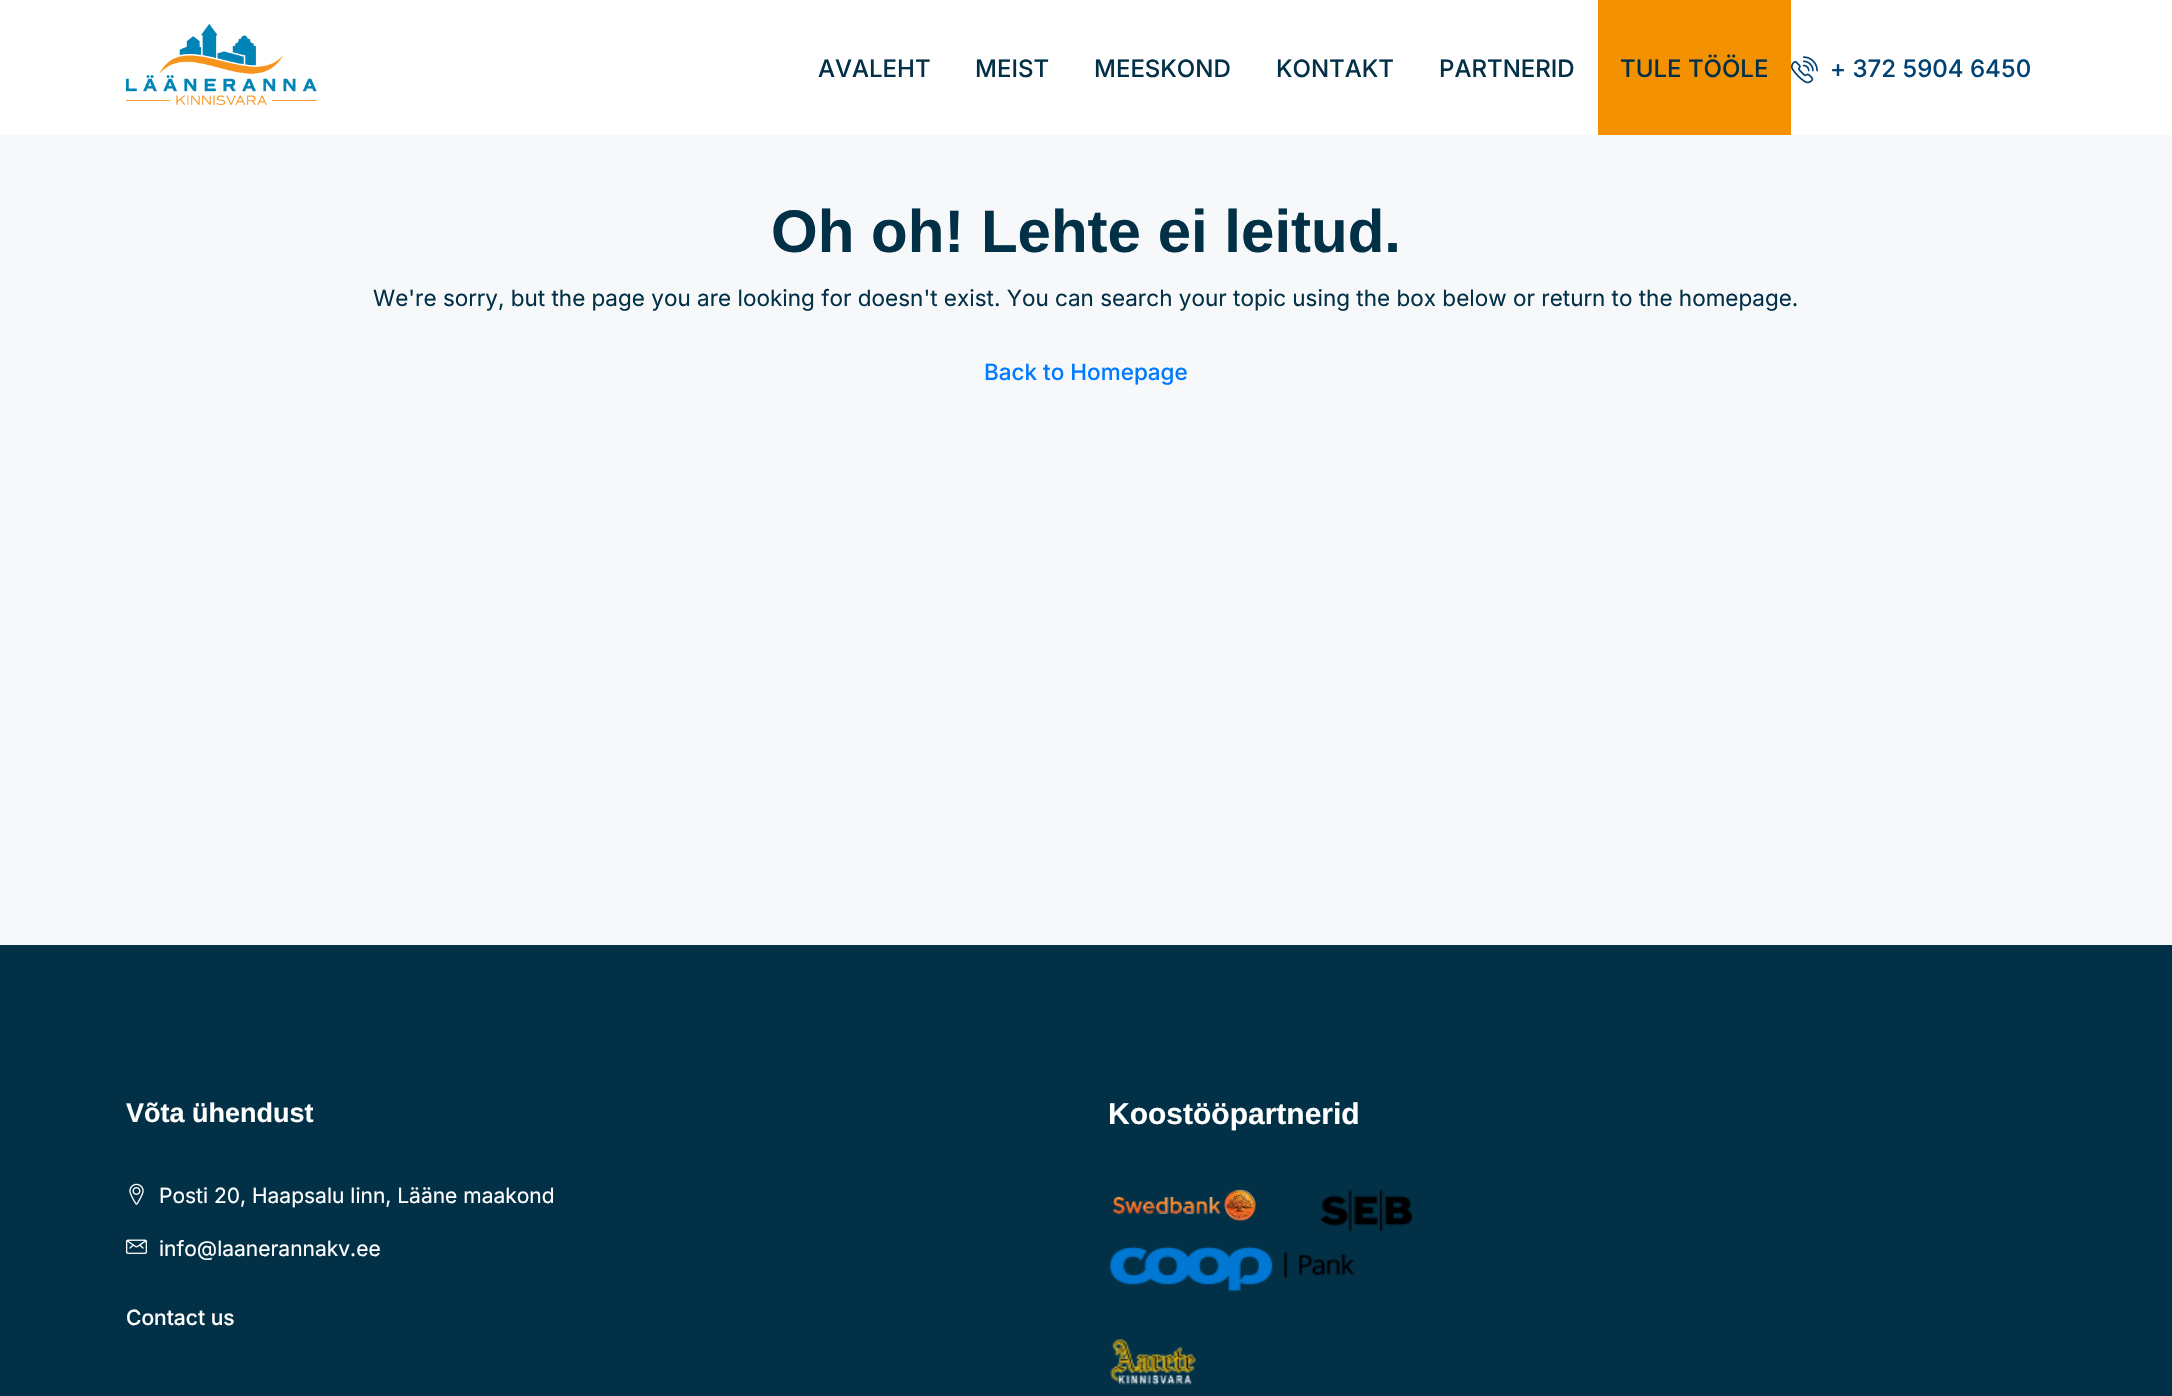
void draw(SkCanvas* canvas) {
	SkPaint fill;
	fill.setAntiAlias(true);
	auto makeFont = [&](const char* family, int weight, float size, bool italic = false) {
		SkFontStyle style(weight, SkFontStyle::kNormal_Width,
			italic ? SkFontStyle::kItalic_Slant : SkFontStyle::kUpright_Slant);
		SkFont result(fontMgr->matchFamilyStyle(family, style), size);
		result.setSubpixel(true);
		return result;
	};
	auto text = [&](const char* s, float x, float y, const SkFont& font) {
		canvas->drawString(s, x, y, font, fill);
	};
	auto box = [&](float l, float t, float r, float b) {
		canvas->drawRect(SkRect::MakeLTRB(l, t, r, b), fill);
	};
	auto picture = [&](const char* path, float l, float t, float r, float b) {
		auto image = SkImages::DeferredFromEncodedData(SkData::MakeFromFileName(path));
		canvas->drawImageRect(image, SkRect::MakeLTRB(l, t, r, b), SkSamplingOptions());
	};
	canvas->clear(0xFFF7F8F9);
	fill.setColor(0xFFFFFFFF);
	box(0, 0, 2172, 135);
	picture("image0.png", 126, 24, 317, 105);
	fill.setColor(0xFFF39100);
	box(1598, 0, 1791, 135);
	picture("image1.png", 1791, 56, 1818, 84);
	fill.setColor(0xFF023047);
	box(0, 945, 2172, 1396);
	picture("image2.png", 129, 1183, 144, 1205);
	picture("image3.png", 126, 1239, 147, 1254);
	picture("image4.png", 1113, 1189, 1256, 1221);
	picture("image5.png", 1320, 1189, 1413, 1232);
	picture("image6.png", 1109, 1246, 1355, 1292);
	picture("image7.png", 1110, 1339, 1196, 1385);
	auto font1 = makeFont("Inter", 500, 24);
	text("AVALEHT", 818, 77, font1);
	text("MEIST", 975, 77, font1);
	text("MEESKOND", 1094, 77, font1);
	text("KONTAKT", 1276, 77, font1);
	text("PARTNERID", 1439, 77, font1);
	text("TULE TÖÖLE", 1620, 77, font1);
	fill.setColor(0xFF004274);
	text("+ 372 5904 6450", 1830, 77, font1);
	auto font2 = makeFont("Liberation Sans", 700, 60);
	fill.setColor(0xFF023047);
	text("Oh oh! Lehte ei leitud.", 771, 252, font2);
	auto font3 = makeFont("Inter", 400, 22.5f);
	text("We're sorry, but the page you are looking for doesn't exist. You can search your topic using the box below or return to the homepage.", 373, 306, font3);
	auto font4 = makeFont("Inter", 500, 22.5f);
	fill.setColor(0xFF007BFF);
	text("Back to Homepage", 984, 380, font4);
	auto font5 = makeFont("Liberation Sans", 700, 27);
	fill.setColor(0xFFFFFFFF);
	text("Võta ühendust", 126, 1122, font5);
	auto font6 = makeFont("Inter", 400, 21);
	text("Posti 20, Haapsalu linn, Lääne maakond", 159, 1203, font6);
	text("info@laanerannakv.ee", 159, 1256, font6);
	auto font7 = makeFont("Inter", 500, 21);
	text("Contact us", 126, 1325, font7);
	auto font8 = makeFont("Liberation Sans", 700, 30);
	text("Koostööpartnerid", 1108, 1124, font8);
}
